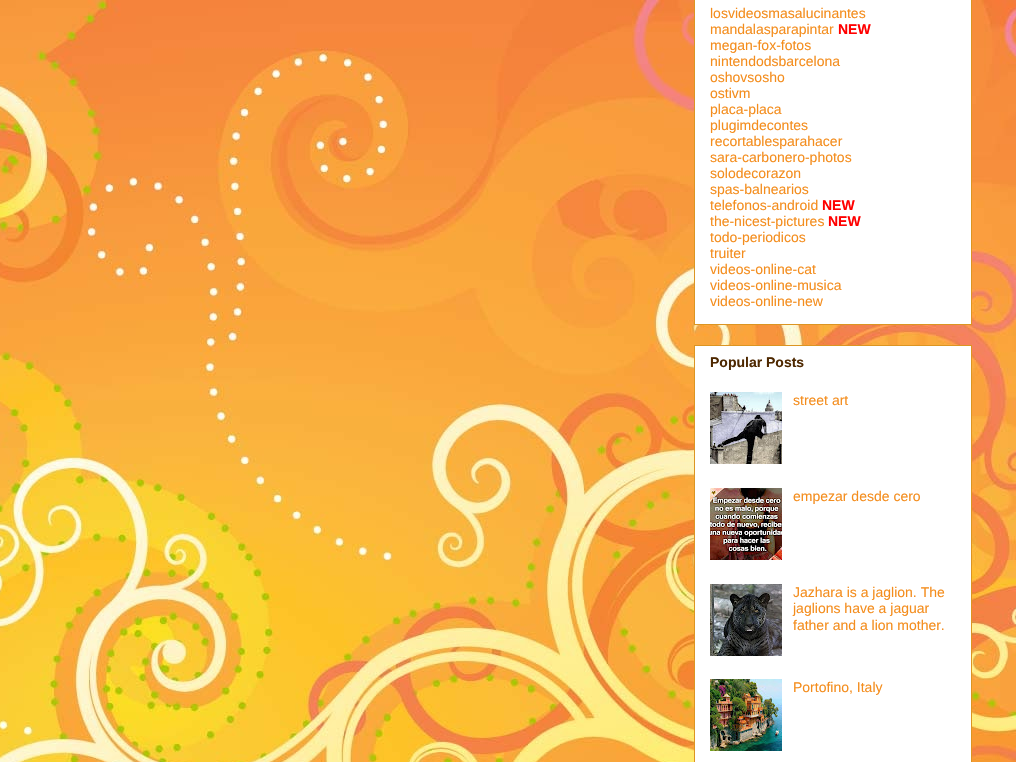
void draw(SkCanvas* canvas) {
	SkPaint fill;
	fill.setAntiAlias(true);
	auto makeFont = [&](const char* family, int weight, float size, bool italic = false) {
		SkFontStyle style(weight, SkFontStyle::kNormal_Width,
			italic ? SkFontStyle::kItalic_Slant : SkFontStyle::kUpright_Slant);
		SkFont result(fontMgr->matchFamilyStyle(family, style), size);
		result.setSubpixel(true);
		return result;
	};
	auto text = [&](const char* s, float x, float y, const SkFont& font) {
		canvas->drawString(s, x, y, font, fill);
	};
	auto picture = [&](const char* path, float l, float t, float r, float b) {
		auto image = SkImages::DeferredFromEncodedData(SkData::MakeFromFileName(path));
		canvas->drawImageRect(image, SkRect::MakeLTRB(l, t, r, b), SkSamplingOptions());
	};
	canvas->clear(0xFFFFFFFF);
	picture("image0.png", 0, 0, 1016, 762);
	fill.setColor(0xFFFFFFFF);
	canvas->drawRect(SkRect::MakeLTRB(694.5f, -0.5f, 971.5f, 324.5f), fill);
	fill.setStyle(SkPaint::kStroke_Style);
	fill.setStrokeWidth(1);
	fill.setColor(0xFFDC9522);
	canvas->drawRect(SkRect::MakeLTRB(694.5f, -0.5f, 971.5f, 324.5f), fill);
	fill.setStyle(SkPaint::kFill_Style);
	fill.setColor(0xFFFFFFFF);
	canvas->drawRect(SkRect::MakeLTRB(694.5f, 345.5f, 971.5f, 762.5f), fill);
	fill.setStyle(SkPaint::kStroke_Style);
	fill.setColor(0xFFDC9522);
	canvas->drawRect(SkRect::MakeLTRB(694.5f, 345.5f, 971.5f, 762.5f), fill);
	picture("image1.png", 710, 392, 782, 464);
	picture("image2.png", 710, 488, 782, 560);
	picture("image3.png", 710, 584, 782, 656);
	picture("image4.png", 710, 679, 782, 751);
	auto font1 = makeFont("Liberation Sans", 400, 14);
	fill.setStyle(SkPaint::kFill_Style);
	fill.setColor(0xFFF48D1D);
	text("losvideosmasalucinantes", 710, 18, font1);
	text("mandalasparapintar", 710, 34, font1);
	auto font2 = makeFont("Liberation Sans", 700, 14);
	fill.setColor(0xFFFF0000);
	text("NEW", 838, 34, font2);
	fill.setColor(0xFFF48D1D);
	text("megan-fox-fotos", 710, 50, font1);
	text("nintendodsbarcelona", 710, 66, font1);
	text("oshovsosho", 710, 82, font1);
	text("ostivm", 710, 98, font1);
	text("placa-placa", 710, 114, font1);
	text("plugimdecontes", 710, 130, font1);
	text("recortablesparahacer", 710, 146, font1);
	text("sara-carbonero-photos", 710, 162, font1);
	text("solodecorazon", 710, 178, font1);
	text("spas-balnearios", 710, 194, font1);
	text("telefonos-android", 710, 210, font1);
	fill.setColor(0xFFFF0000);
	text("NEW", 822, 210, font2);
	fill.setColor(0xFFF48D1D);
	text("the-nicest-pictures", 710, 226, font1);
	fill.setColor(0xFFFF0000);
	text("NEW", 828, 226, font2);
	fill.setColor(0xFFF48D1D);
	text("todo-periodicos", 710, 242, font1);
	text("truiter", 710, 258, font1);
	text("videos-online-cat", 710, 274, font1);
	text("videos-online-musica", 710, 290, font1);
	text("videos-online-new", 710, 306, font1);
	fill.setColor(0xFF4E2800);
	text("Popular Posts", 710, 367, font2);
	fill.setColor(0xFFF48D1D);
	text("street art", 793, 405, font1);
	text("empezar desde cero", 793, 501, font1);
	text("Jazhara is a jaglion. The", 793, 597, font1);
	text("jaglions have a jaguar", 793, 613, font1);
	text("father and a lion mother.", 793, 630, font1);
	text("Portofino, Italy", 793, 692, font1);
}
